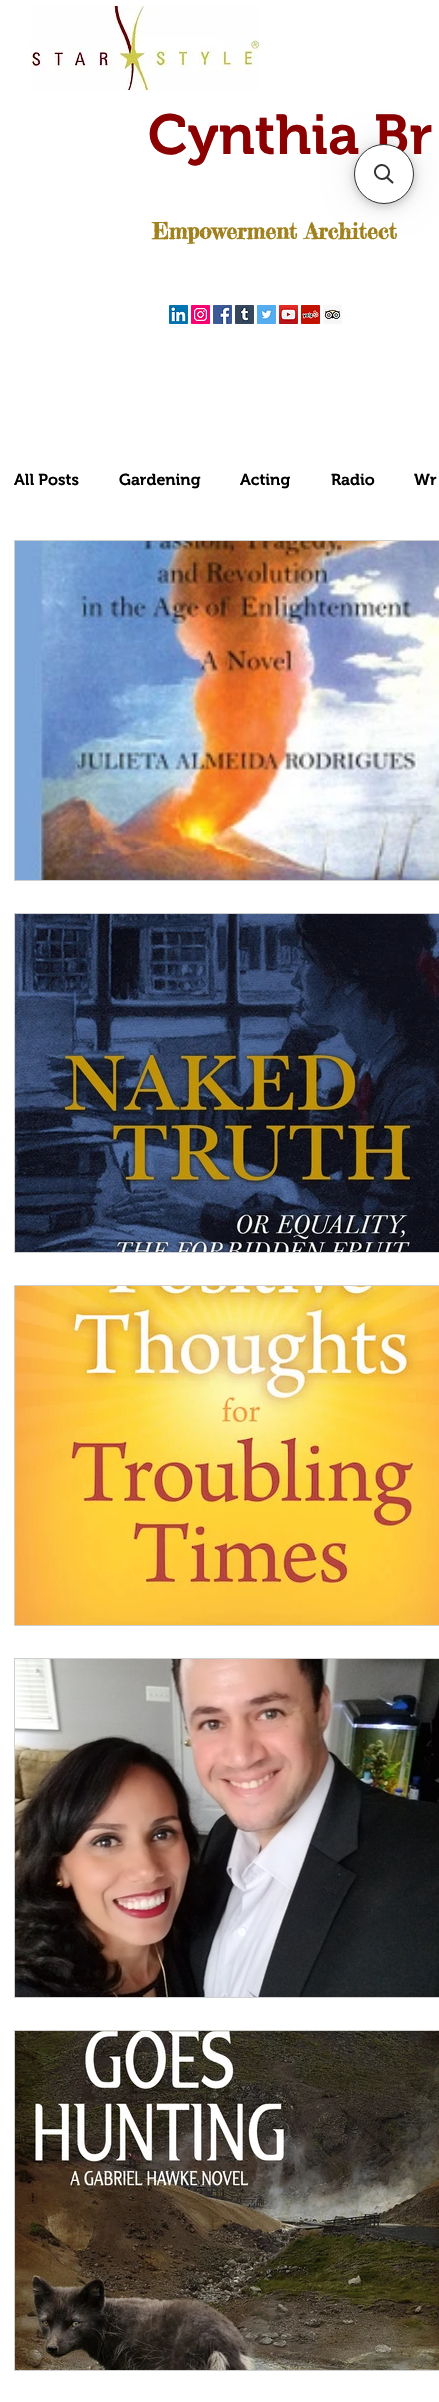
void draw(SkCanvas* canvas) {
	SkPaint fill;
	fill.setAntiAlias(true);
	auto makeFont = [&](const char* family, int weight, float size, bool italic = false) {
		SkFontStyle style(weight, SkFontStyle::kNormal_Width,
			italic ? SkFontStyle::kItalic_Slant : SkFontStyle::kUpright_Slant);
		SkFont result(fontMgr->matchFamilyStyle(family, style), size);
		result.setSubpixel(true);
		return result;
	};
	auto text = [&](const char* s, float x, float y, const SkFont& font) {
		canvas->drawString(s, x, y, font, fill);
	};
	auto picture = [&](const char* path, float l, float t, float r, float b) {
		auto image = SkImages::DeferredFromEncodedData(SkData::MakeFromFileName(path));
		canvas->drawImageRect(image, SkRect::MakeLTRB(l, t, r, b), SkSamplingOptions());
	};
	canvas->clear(0xFFFFFFFF);
	fill.setColor(0x0D000000);
	fill.setMaskFilter(SkMaskFilter::MakeBlur(kNormal_SkBlurStyle, 4));
	canvas->drawRoundRect(SkRect::MakeLTRB(354, 148, 414, 208), 30, 30, fill);
	fill.setMaskFilter(nullptr);
	fill.setColor(0x26000000);
	fill.setMaskFilter(SkMaskFilter::MakeBlur(kNormal_SkBlurStyle, 4));
	canvas->drawRoundRect(SkRect::MakeLTRB(354, 146, 414, 206), 30, 30, fill);
	fill.setMaskFilter(nullptr);
	fill.setColor(0x1A000000);
	fill.setMaskFilter(SkMaskFilter::MakeBlur(kNormal_SkBlurStyle, 15));
	canvas->drawRoundRect(SkRect::MakeLTRB(354, 144, 414, 204), 30, 30, fill);
	fill.setMaskFilter(nullptr);
	picture("image0.png", 31, 6, 260, 90);
	picture("image1.png", 169, 305, 188, 324);
	picture("image2.png", 191, 305, 210, 324);
	picture("image3.png", 213, 305, 232, 324);
	picture("image4.png", 235, 305, 254, 324);
	picture("image5.png", 257, 305, 276, 324);
	picture("image6.png", 279, 305, 298, 324);
	picture("image7.png", 301, 305, 320, 324);
	picture("image8.png", 323, 305, 342, 324);
	fill.setStyle(SkPaint::kStroke_Style);
	fill.setStrokeWidth(1);
	fill.setColor(0xFFCFCFCF);
	canvas->drawRect(SkRect::MakeLTRB(14.5f, 540.5f, 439.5f, 880.5f), fill);
	picture("image9.png", 15, 541, 439, 880);
	canvas->drawRect(SkRect::MakeLTRB(14.5f, 913.5f, 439.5f, 1252.5f), fill);
	picture("image10.png", 15, 914, 439, 1252);
	canvas->drawRect(SkRect::MakeLTRB(14.5f, 1285.5f, 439.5f, 1625.5f), fill);
	picture("image11.png", 15, 1286, 439, 1625);
	canvas->drawRect(SkRect::MakeLTRB(14.5f, 1658.5f, 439.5f, 1997.5f), fill);
	picture("image12.png", 15, 1659, 439, 1997);
	canvas->drawRect(SkRect::MakeLTRB(14.5f, 2030.5f, 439.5f, 2370.5f), fill);
	picture("image13.png", 15, 2031, 439, 2370);
	auto font1 = makeFont("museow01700", 600, 56);
	fill.setStyle(SkPaint::kFill_Style);
	fill.setColor(0xFF8B0000);
	text("Cynthia Br", 148, 154, font1);
	fill.setColor(0xFFFFFFFF);
	canvas->drawCircle(384, 174, 29.5f, fill);
	fill.setStyle(SkPaint::kStroke_Style);
	fill.setColor(0xFF333333);
	canvas->drawCircle(384, 174, 29.5f, fill);
	fill.setStrokeWidth(2);
	canvas->drawPath(SkPathBuilder().moveTo(377, 167).cubicTo(383.5f, 160.5f, 393.5f, 170.5f, 387, 177).cubicTo(380.5f, 183.5f, 370.5f, 173.5f, 377, 167).close().detach(), fill);
	fill.setStyle(SkPaint::kFill_Style);
	canvas->drawPath(SkPathBuilder().moveTo(386, 178).lineTo(387.5f, 176.5f).lineTo(393.5f, 182).cubicTo(394, 183, 392.5f, 184, 392, 183.5f).close().detach(), fill);
	auto font2 = makeFont("Fredericka the Great", 700, 22);
	fill.setColor(0xFFA0811D);
	text("Empowerment Architect", 152, 239, font2);
	auto font3 = makeFont("museow01700", 600, 16);
	fill.setColor(0xFF000000);
	text("All Posts", 14, 485, font3);
	text("Gardening", 119, 485, font3);
	text("Acting", 240, 485, font3);
	text("Radio", 331, 485, font3);
	text("Wr", 414, 485, font3);
}
